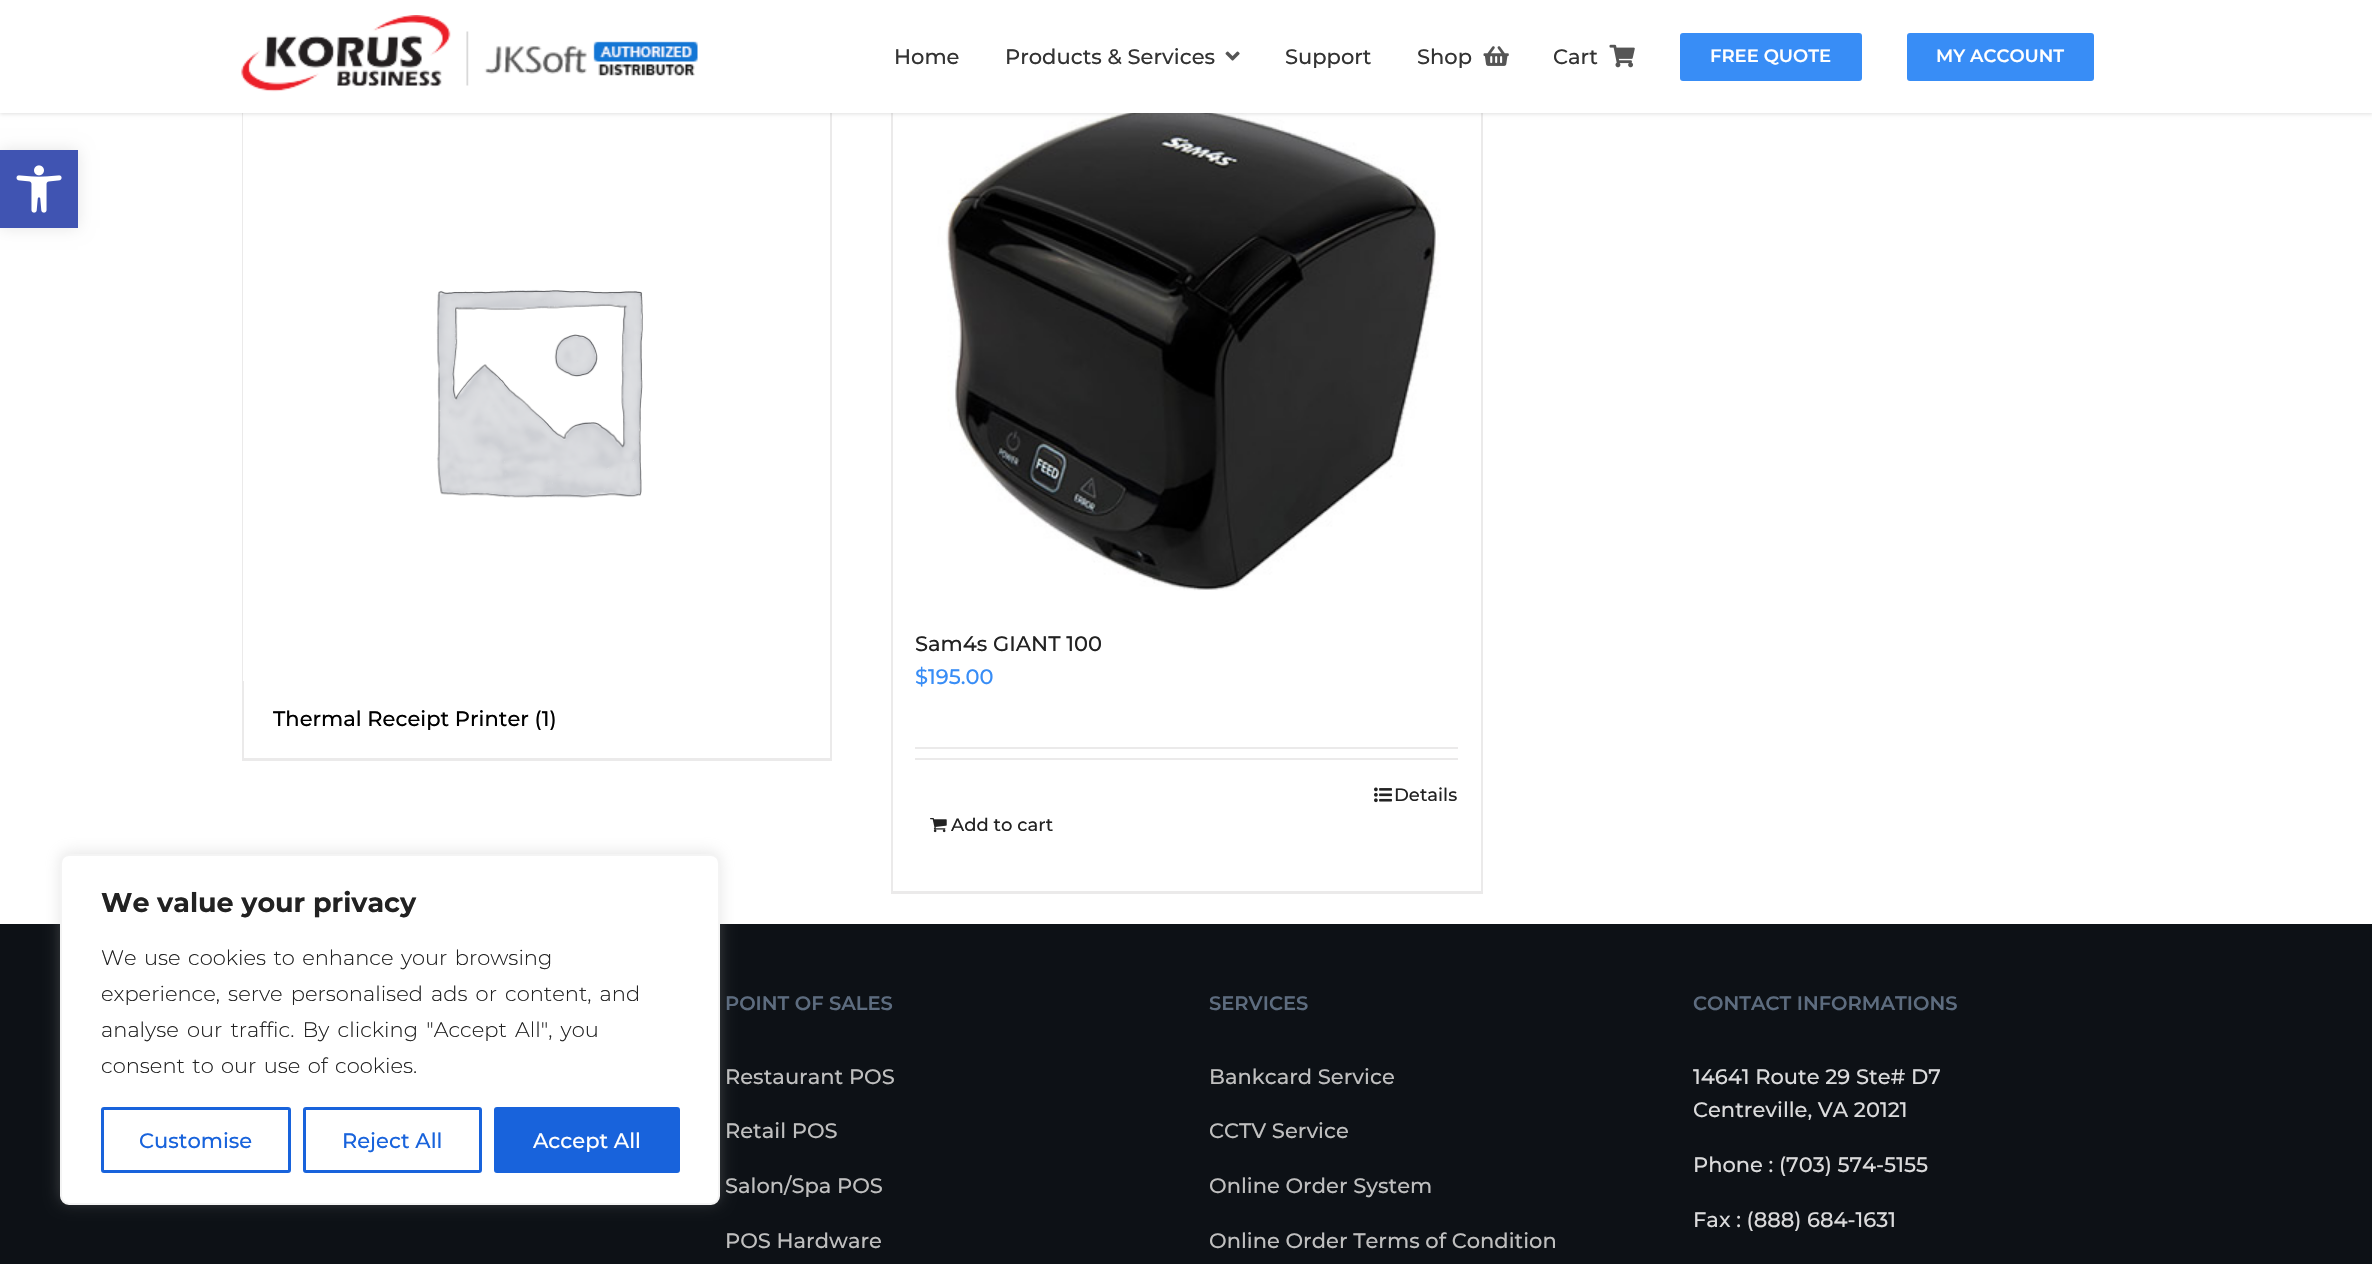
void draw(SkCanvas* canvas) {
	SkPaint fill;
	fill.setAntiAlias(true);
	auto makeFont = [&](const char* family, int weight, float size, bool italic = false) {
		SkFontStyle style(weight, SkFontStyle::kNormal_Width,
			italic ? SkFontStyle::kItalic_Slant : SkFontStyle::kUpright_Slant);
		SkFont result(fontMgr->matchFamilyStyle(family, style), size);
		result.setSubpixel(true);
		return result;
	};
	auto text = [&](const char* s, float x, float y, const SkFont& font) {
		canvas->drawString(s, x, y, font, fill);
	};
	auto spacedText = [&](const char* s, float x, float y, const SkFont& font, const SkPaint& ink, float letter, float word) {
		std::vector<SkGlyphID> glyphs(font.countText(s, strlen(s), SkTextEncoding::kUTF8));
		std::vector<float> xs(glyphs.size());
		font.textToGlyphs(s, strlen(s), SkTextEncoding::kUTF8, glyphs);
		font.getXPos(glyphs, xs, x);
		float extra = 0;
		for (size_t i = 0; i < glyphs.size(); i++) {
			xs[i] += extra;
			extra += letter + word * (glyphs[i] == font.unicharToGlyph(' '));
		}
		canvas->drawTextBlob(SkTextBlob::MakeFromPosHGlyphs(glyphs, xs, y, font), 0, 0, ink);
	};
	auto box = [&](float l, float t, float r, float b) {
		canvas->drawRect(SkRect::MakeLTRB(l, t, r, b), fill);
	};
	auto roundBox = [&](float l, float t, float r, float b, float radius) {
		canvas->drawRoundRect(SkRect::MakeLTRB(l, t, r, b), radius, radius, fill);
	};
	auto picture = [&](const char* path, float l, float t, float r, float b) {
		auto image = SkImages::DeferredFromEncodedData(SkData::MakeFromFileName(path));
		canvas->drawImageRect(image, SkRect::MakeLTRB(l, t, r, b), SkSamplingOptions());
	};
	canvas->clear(0xFFFFFFFF);
	fill.setColor(0x1A000000);
	fill.setMaskFilter(SkMaskFilter::MakeBlur(kNormal_SkBlurStyle, 7.5f));
	canvas->drawRect(SkRect::MakeLTRB(0, 150, 78, 228), fill);
	fill.setMaskFilter(nullptr);
	fill.setColor(0xFF4054B2);
	box(0, 150, 78, 228);
	picture("image0.png", 16, 165, 62, 213);
	fill.setColor(0xFFEBEAEA);
	box(830, 113, 832, 761);
	box(242, 758, 831, 761);
	box(242, 113, 244, 761);
	picture("image5.png", 243, 113, 830, 681);
	box(1481, 113, 1483, 894);
	box(891, 891, 1482, 894);
	box(891, 113, 893, 894);
	picture("image6.png", 924, 113, 1449, 591);
	fill.setColor(0x1F000000);
	fill.setMaskFilter(SkMaskFilter::MakeBlur(kNormal_SkBlurStyle, 2));
	canvas->drawRect(SkRect::MakeLTRB(0, 2, 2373, 114), fill);
	fill.setMaskFilter(nullptr);
	fill.setColor(0xFFFFFFFF);
	box(0, 0, 2372, 113);
	picture("image1.png", 241, 15, 698, 92);
	picture("image2.png", 1225, 51, 1240, 61);
	picture("image3.png", 1483, 46, 1509, 66);
	picture("image4.png", 1609, 44, 1635, 68);
	fill.setColor(0xFF388DF6);
	roundBox(1680, 33, 1862, 81, 3);
	roundBox(1907, 33, 2094, 81, 3);
	fill.setColor(0xFFEBEAEA);
	box(915, 747, 1458, 749);
	box(915, 758, 1458, 760);
	picture("image7.png", 1374, 787, 1392, 803);
	picture("image8.png", 930, 818, 947, 833);
	fill.setColor(0xFF0D1116);
	box(0, 924, 2372, 1264);
	fill.setColor(0x4DACABAB);
	fill.setMaskFilter(SkMaskFilter::MakeBlur(kNormal_SkBlurStyle, 7.5f));
	canvas->drawRoundRect(SkRect::MakeLTRB(60, 852, 720, 1203), 9, 9, fill);
	fill.setMaskFilter(nullptr);
	fill.setColor(0xFFFFFFFF);
	canvas->drawRoundRect(SkRect::MakeLTRB(61, 855, 719, 1204), 8, 8, fill);
	fill.setStyle(SkPaint::kStroke_Style);
	fill.setStrokeWidth(2);
	fill.setColor(0xFFF4F4F4);
	canvas->drawRoundRect(SkRect::MakeLTRB(61, 855, 719, 1204), 8, 8, fill);
	fill.setStrokeWidth(3);
	fill.setColor(0xFF1863DC);
	canvas->drawRoundRect(SkRect::MakeLTRB(102.5f, 1108.5f, 289.5f, 1171.5f), 1.5f, 1.5f, fill);
	canvas->drawRoundRect(SkRect::MakeLTRB(304.5f, 1108.5f, 480.5f, 1171.5f), 1.5f, 1.5f, fill);
	fill.setStyle(SkPaint::kFill_Style);
	canvas->drawRoundRect(SkRect::MakeLTRB(495.5f, 1108.5f, 678.5f, 1171.5f), 1.5f, 1.5f, fill);
	fill.setStyle(SkPaint::kStroke_Style);
	canvas->drawRoundRect(SkRect::MakeLTRB(495.5f, 1108.5f, 678.5f, 1171.5f), 1.5f, 1.5f, fill);
	auto font1 = makeFont("Montserrat", 500, 21);
	fill.setStyle(SkPaint::kFill_Style);
	fill.setColor(0xFF333333);
	text("Home", 894, 64, font1);
	text("Products & Services", 1005, 64, font1);
	text("Support", 1285, 64, font1);
	text("Shop", 1417, 64, font1);
	text("Cart", 1553, 64, font1);
	auto font2 = makeFont("Montserrat", 600, 18);
	fill.setColor(0xFFFFFFFF);
	text("FREE QUOTE", 1710, 62, font2);
	text("MY ACCOUNT", 1936, 62, font2);
	fill.setColor(0xFF000000);
	text("Thermal Receipt Printer (1)", 273, 726, font1);
	fill.setColor(0xFF222222);
	text("Sam4s GIANT 100", 915, 651, font1);
	fill.setColor(0xFF388DF6);
	text("$195.00", 915, 684, font1);
	auto font3 = makeFont("Montserrat", 500, 18);
	fill.setColor(0xFF222222);
	text("Details", 1394, 801, font3);
	text("Add to cart", 951, 831, font3);
	auto font4 = makeFont("Montserrat", 600, 19.5f);
	fill.setColor(0xFF5D6C7F);
	text("POINT OF SALES", 725, 1010, font4);
	fill.setColor(0xFFBFBFBF);
	text("Restaurant POS", 725, 1084, font1);
	text("Retail POS", 725, 1138, font1);
	text("Salon/Spa POS", 725, 1193, font1);
	text("POS Hardware", 725, 1248, font1);
	fill.setColor(0xFF5D6C7F);
	text("SERVICES", 1209, 1010, font4);
	fill.setColor(0xFFBFBFBF);
	text("Bankcard Service", 1209, 1084, font1);
	text("CCTV Service", 1209, 1138, font1);
	text("Online Order System", 1209, 1193, font1);
	text("Online Order Terms of Condition", 1209, 1248, font1);
	fill.setColor(0xFF5D6C7F);
	text("CONTACT INFORMATIONS", 1693, 1010, font4);
	fill.setColor(0xFFDBDBDC);
	text("14641 Route 29 Ste# D7", 1693, 1084, font1);
	text("Centreville, VA 20121", 1693, 1117, font1);
	text("Phone : (703) 574-5155", 1693, 1172, font1);
	text("Fax : (888) 684-1631", 1693, 1227, font1);
	auto font5 = makeFont("Montserrat", 700, 27);
	fill.setColor(0xFF222222);
	text("We value your privacy", 101, 912, font5);
	auto font6 = makeFont("Montserrat", 300, 21);
	spacedText("We use cookies to enhance your browsing", 101, 965, font6, fill, 0, 2);
	spacedText("experience, serve personalised ads or content, and", 101, 1001, font6, fill, 0, 2.75f);
	spacedText("analyse our traffic. By clicking \"Accept All\", you", 101, 1037, font6, fill, 0, 2.75f);
	spacedText("consent to our use of cookies.", 101, 1073, font6, fill, 0, 2);
	fill.setColor(0xFF1863DC);
	text("Customise", 139, 1148, font1);
	text("Reject All", 342, 1148, font1);
	fill.setColor(0xFFFFFFFF);
	text("Accept All", 533, 1148, font1);
}
